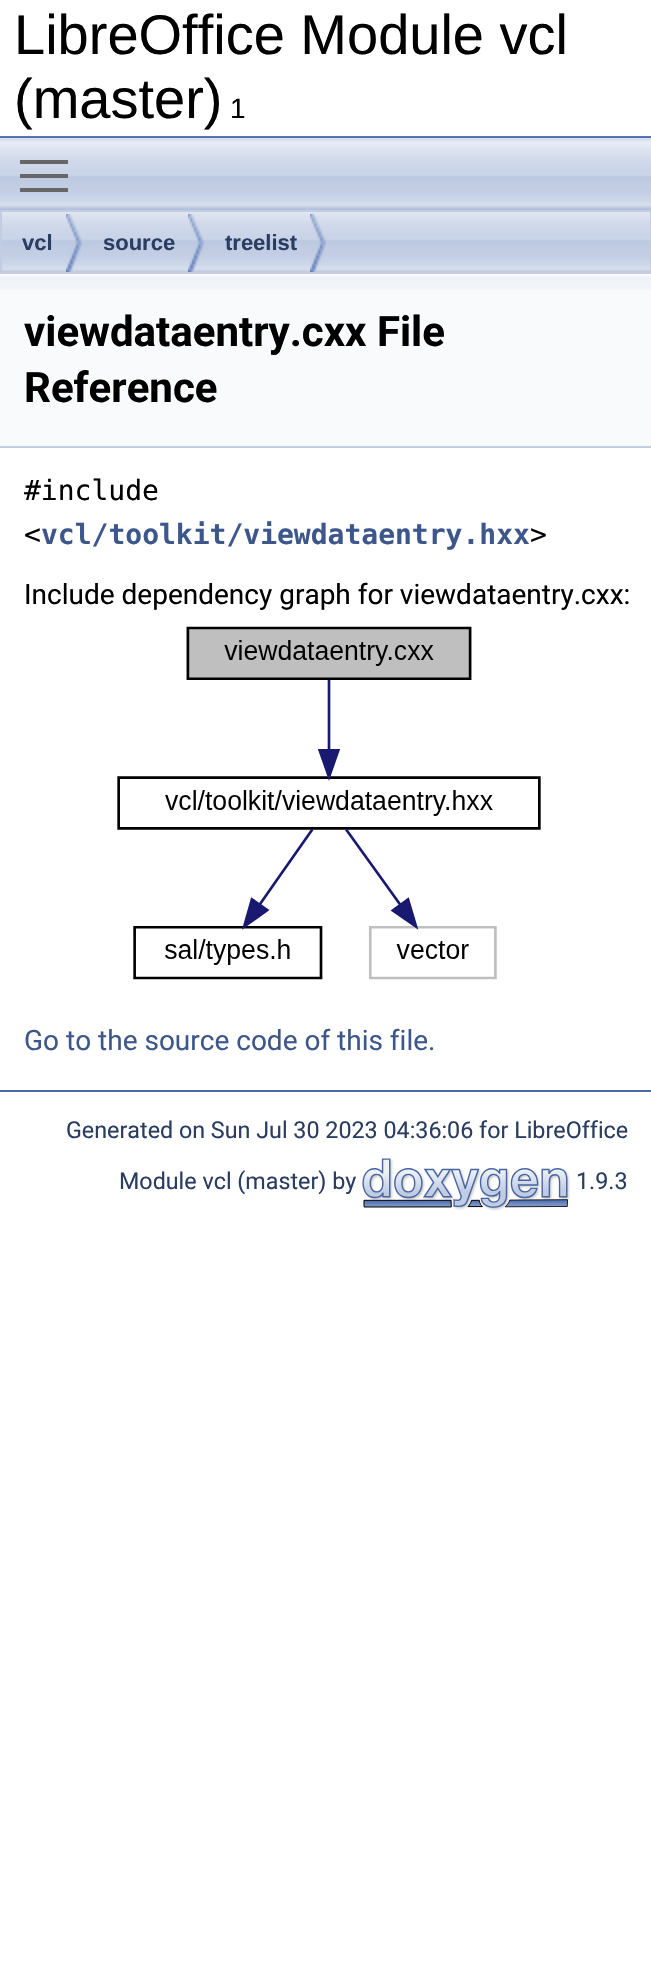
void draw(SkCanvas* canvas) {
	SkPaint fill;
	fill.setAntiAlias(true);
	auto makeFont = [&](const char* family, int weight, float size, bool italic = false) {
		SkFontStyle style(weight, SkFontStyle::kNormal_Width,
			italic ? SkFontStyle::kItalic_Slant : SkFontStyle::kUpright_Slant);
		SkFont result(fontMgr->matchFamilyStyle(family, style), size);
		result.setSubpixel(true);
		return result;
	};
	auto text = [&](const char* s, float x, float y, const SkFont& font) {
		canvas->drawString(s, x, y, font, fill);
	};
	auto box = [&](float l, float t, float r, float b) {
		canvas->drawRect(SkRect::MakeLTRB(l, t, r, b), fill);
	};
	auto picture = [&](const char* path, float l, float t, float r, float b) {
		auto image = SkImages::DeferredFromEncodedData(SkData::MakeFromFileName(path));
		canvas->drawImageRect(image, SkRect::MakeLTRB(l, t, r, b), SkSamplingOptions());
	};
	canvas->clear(0xFFFFFFFF);
	fill.setColor(0xFF5373B4);
	box(0, 136, 651, 138);
	picture("image0.png", 0, 138, 651, 210);
	fill.setColor(0xFF666666);
	box(20, 174, 68, 178);
	box(20, 160, 68, 164);
	box(20, 188, 68, 192);
	picture("image1.png", 2, 212, 650, 272);
	fill.setStyle(SkPaint::kStroke_Style);
	fill.setStrokeWidth(2);
	fill.setColor(0xFFC2CDE4);
	canvas->drawRect(SkRect::MakeLTRB(1, 211, 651, 273), fill);
	picture("image2.png", 66, 214, 82, 272);
	picture("image2.png", 188, 214, 204, 272);
	picture("image2.png", 310, 214, 326, 272);
	fill.setStyle(SkPaint::kFill_Style);
	fill.setColor(0xFFF9FAFC);
	box(0, 290, 651, 446);
	picture("image3.png", 0, 274, 651, 290);
	fill.setColor(0xFFC4CFE5);
	box(0, 446, 651, 448);
	picture("image4.png", 117, 626, 541, 980);
	fill.setColor(0xFF4A6AAA);
	box(0, 1090, 651, 1092);
	picture("image5.png", 362, 1158, 570, 1211);
	auto font1 = makeFont("Liberation Sans", 400, 56);
	fill.setColor(0xFF000000);
	text("LibreOffice Module vcl", 14, 54, font1);
	text("(master)", 14, 118, font1);
	auto font2 = makeFont("Liberation Sans", 400, 28);
	text("1", 230, 118, font2);
	auto font3 = makeFont("Liberation Sans", 700, 22);
	fill.setColor(0xFF2A3D61);
	text("vcl", 22, 250, font3);
	text("source", 103, 250, font3);
	text("treelist", 225, 250, font3);
	auto font4 = makeFont("Roboto", 700, 42);
	fill.setColor(0xFF000000);
	text("viewdataentry.cxx File", 24, 346, font4);
	text("Reference", 24, 402, font4);
	auto font5 = makeFont("DejaVu Sans Mono", 400, 28);
	text("#include", 24, 500, font5);
	text("<", 24, 544, font5);
	auto font6 = makeFont("DejaVu Sans Mono", 700, 28);
	fill.setColor(0xFF3D578C);
	text("vcl/toolkit/viewdataentry.hxx", 41, 544, font6);
	fill.setColor(0xFF000000);
	text(">", 530, 544, font5);
	auto font7 = makeFont("Roboto", 400, 28);
	text("Include dependency graph for viewdataentry.cxx:", 24, 604, font7);
	fill.setColor(0xFF3D578C);
	text("Go to the source code of this file.", 24, 1050, font7);
	auto font8 = makeFont("Roboto", 400, 23.3f);
	fill.setColor(0xFF2A3D61);
	text("Generated on Sun Jul 30 2023 04:36:06 for LibreOffice", 66, 1138, font8);
	text("Module vcl (master) by", 119, 1189, font8);
	text("1.9.3", 576, 1189, font8);
}
